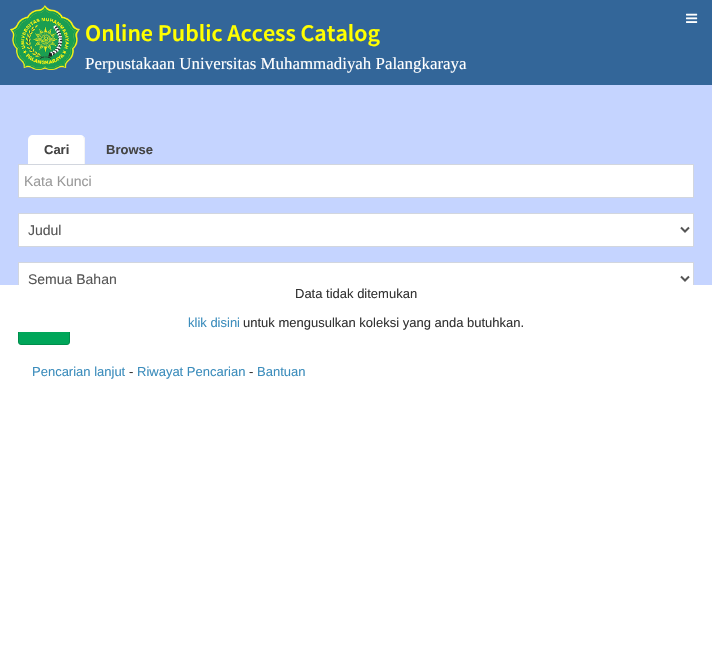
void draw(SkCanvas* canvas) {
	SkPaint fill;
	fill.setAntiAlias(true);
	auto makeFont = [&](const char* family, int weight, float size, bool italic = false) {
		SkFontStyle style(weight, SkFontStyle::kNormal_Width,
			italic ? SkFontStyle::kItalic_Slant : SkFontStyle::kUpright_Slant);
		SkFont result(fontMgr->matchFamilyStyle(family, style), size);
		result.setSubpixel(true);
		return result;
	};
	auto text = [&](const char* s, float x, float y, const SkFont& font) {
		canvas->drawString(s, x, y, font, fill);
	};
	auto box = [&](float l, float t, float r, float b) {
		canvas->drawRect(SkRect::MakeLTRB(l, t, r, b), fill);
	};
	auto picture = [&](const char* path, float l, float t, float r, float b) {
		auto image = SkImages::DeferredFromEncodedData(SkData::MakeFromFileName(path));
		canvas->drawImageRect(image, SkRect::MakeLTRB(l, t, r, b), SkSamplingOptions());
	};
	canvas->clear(0xFFFFFFFF);
	fill.setColor(0xFF336699);
	box(0, 0, 712, 85);
	picture("image0.png", 10, 5, 80, 70);
	picture("image1.png", 686, 13, 698, 23);
	fill.setColor(0xFFC5D4FF);
	box(0, 85, 712, 285);
	fill.setColor(0xFFFFFFFF);
	canvas->drawPath(SkPathBuilder().moveTo(33, 135).lineTo(80, 135).cubicTo(83, 135, 85, 137, 85, 140).lineTo(85, 166).lineTo(28, 166).lineTo(28, 140).cubicTo(28, 137, 30, 135, 33, 135).close().detach(), fill);
	fill.setColor(0xFFF4F4F4);
	canvas->drawPath(SkPathBuilder().moveTo(85, 166).lineTo(85, 140).cubicTo(85, 138.5f, 84.5f, 137, 83.5f, 136.5f).lineTo(83, 137).cubicTo(83.5f, 138, 84, 139, 84, 140).lineTo(84, 165).close().detach(), fill);
	fill.setColor(0xFFFFFFFF);
	canvas->drawRect(SkRect::MakeLTRB(18.5f, 164.5f, 693.5f, 197.5f), fill);
	fill.setStyle(SkPaint::kStroke_Style);
	fill.setStrokeWidth(1);
	fill.setColor(0xFFD2D6DE);
	canvas->drawRect(SkRect::MakeLTRB(18.5f, 164.5f, 693.5f, 197.5f), fill);
	fill.setStyle(SkPaint::kFill_Style);
	fill.setColor(0xFFFFFFFF);
	canvas->drawRect(SkRect::MakeLTRB(18.5f, 213.5f, 693.5f, 246.5f), fill);
	fill.setStyle(SkPaint::kStroke_Style);
	fill.setColor(0xFFD2D6DE);
	canvas->drawRect(SkRect::MakeLTRB(18.5f, 213.5f, 693.5f, 246.5f), fill);
	fill.setStrokeWidth(2);
	fill.setColor(0xFF555555);
	canvas->drawPath(SkPathBuilder().moveTo(681, 227.5f).lineTo(685, 231.5f).lineTo(689, 227.5f).detach(), fill);
	fill.setStyle(SkPaint::kFill_Style);
	fill.setColor(0xFFFFFFFF);
	box(19, 263, 693, 285);
	fill.setStyle(SkPaint::kStroke_Style);
	fill.setStrokeWidth(1);
	fill.setColor(0xFFD2D6DE);
	canvas->drawRect(SkRect::MakeLTRB(18.5f, 262.5f, 693.5f, 295.5f), fill);
	fill.setStrokeWidth(2);
	fill.setColor(0xFF555555);
	canvas->drawPath(SkPathBuilder().moveTo(681, 276.5f).lineTo(685, 280.5f).lineTo(689, 276.5f).detach(), fill);
	fill.setStyle(SkPaint::kFill_Style);
	fill.setColor(0xFF00A65A);
	canvas->drawRoundRect(SkRect::MakeLTRB(18.5f, 311.5f, 69.5f, 344.5f), 2.5f, 2.5f, fill);
	fill.setStyle(SkPaint::kStroke_Style);
	fill.setStrokeWidth(1);
	fill.setColor(0xFF008D4C);
	canvas->drawRoundRect(SkRect::MakeLTRB(18.5f, 311.5f, 69.5f, 344.5f), 2.5f, 2.5f, fill);
	fill.setStyle(SkPaint::kFill_Style);
	fill.setColor(0xFFFFFFFF);
	box(18, 285, 694, 332);
	auto font1 = makeFont("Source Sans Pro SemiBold", 600, 24);
	fill.setColor(0xFFFFFF00);
	text("Online Public Access Catalog", 85, 41, font1);
	auto font2 = makeFont("Liberation Serif", 400, 16.9f);
	fill.setColor(0xFFFFFFFF);
	text("Perpustakaan Universitas Muhammadiyah Palangkaraya", 85, 69, font2);
	auto font3 = makeFont("Liberation Sans", 700, 13);
	fill.setColor(0xFF444444);
	text("Cari", 44, 154, font3);
	text("Browse", 106, 154, font3);
	auto font4 = makeFont("Liberation Sans", 400, 14);
	fill.setColor(0xFF999999);
	text("Kata Kunci", 24, 186, font4);
	fill.setColor(0xFF555555);
	text("Judul", 28, 235, font4);
	text("Semua Bahan", 28, 284, font4);
	auto font5 = makeFont("Liberation Sans", 400, 13);
	fill.setColor(0xFF3C8DBC);
	text("Pencarian lanjut", 32, 376, font5);
	fill.setColor(0xFF333333);
	text("-", 129, 376, font5);
	fill.setColor(0xFF3C8DBC);
	text("Riwayat Pencarian", 137, 376, font5);
	fill.setColor(0xFF333333);
	text("-", 249, 376, font5);
	fill.setColor(0xFF3C8DBC);
	text("Bantuan", 257, 376, font5);
	fill.setColor(0xFF333333);
	text("Data tidak ditemukan", 295, 298, font5);
	fill.setColor(0xFF3C8DBC);
	text("klik disini", 188, 327, font5);
	fill.setColor(0xFF333333);
	text("untuk mengusulkan koleksi yang anda butuhkan.", 243, 327, font5);
}
